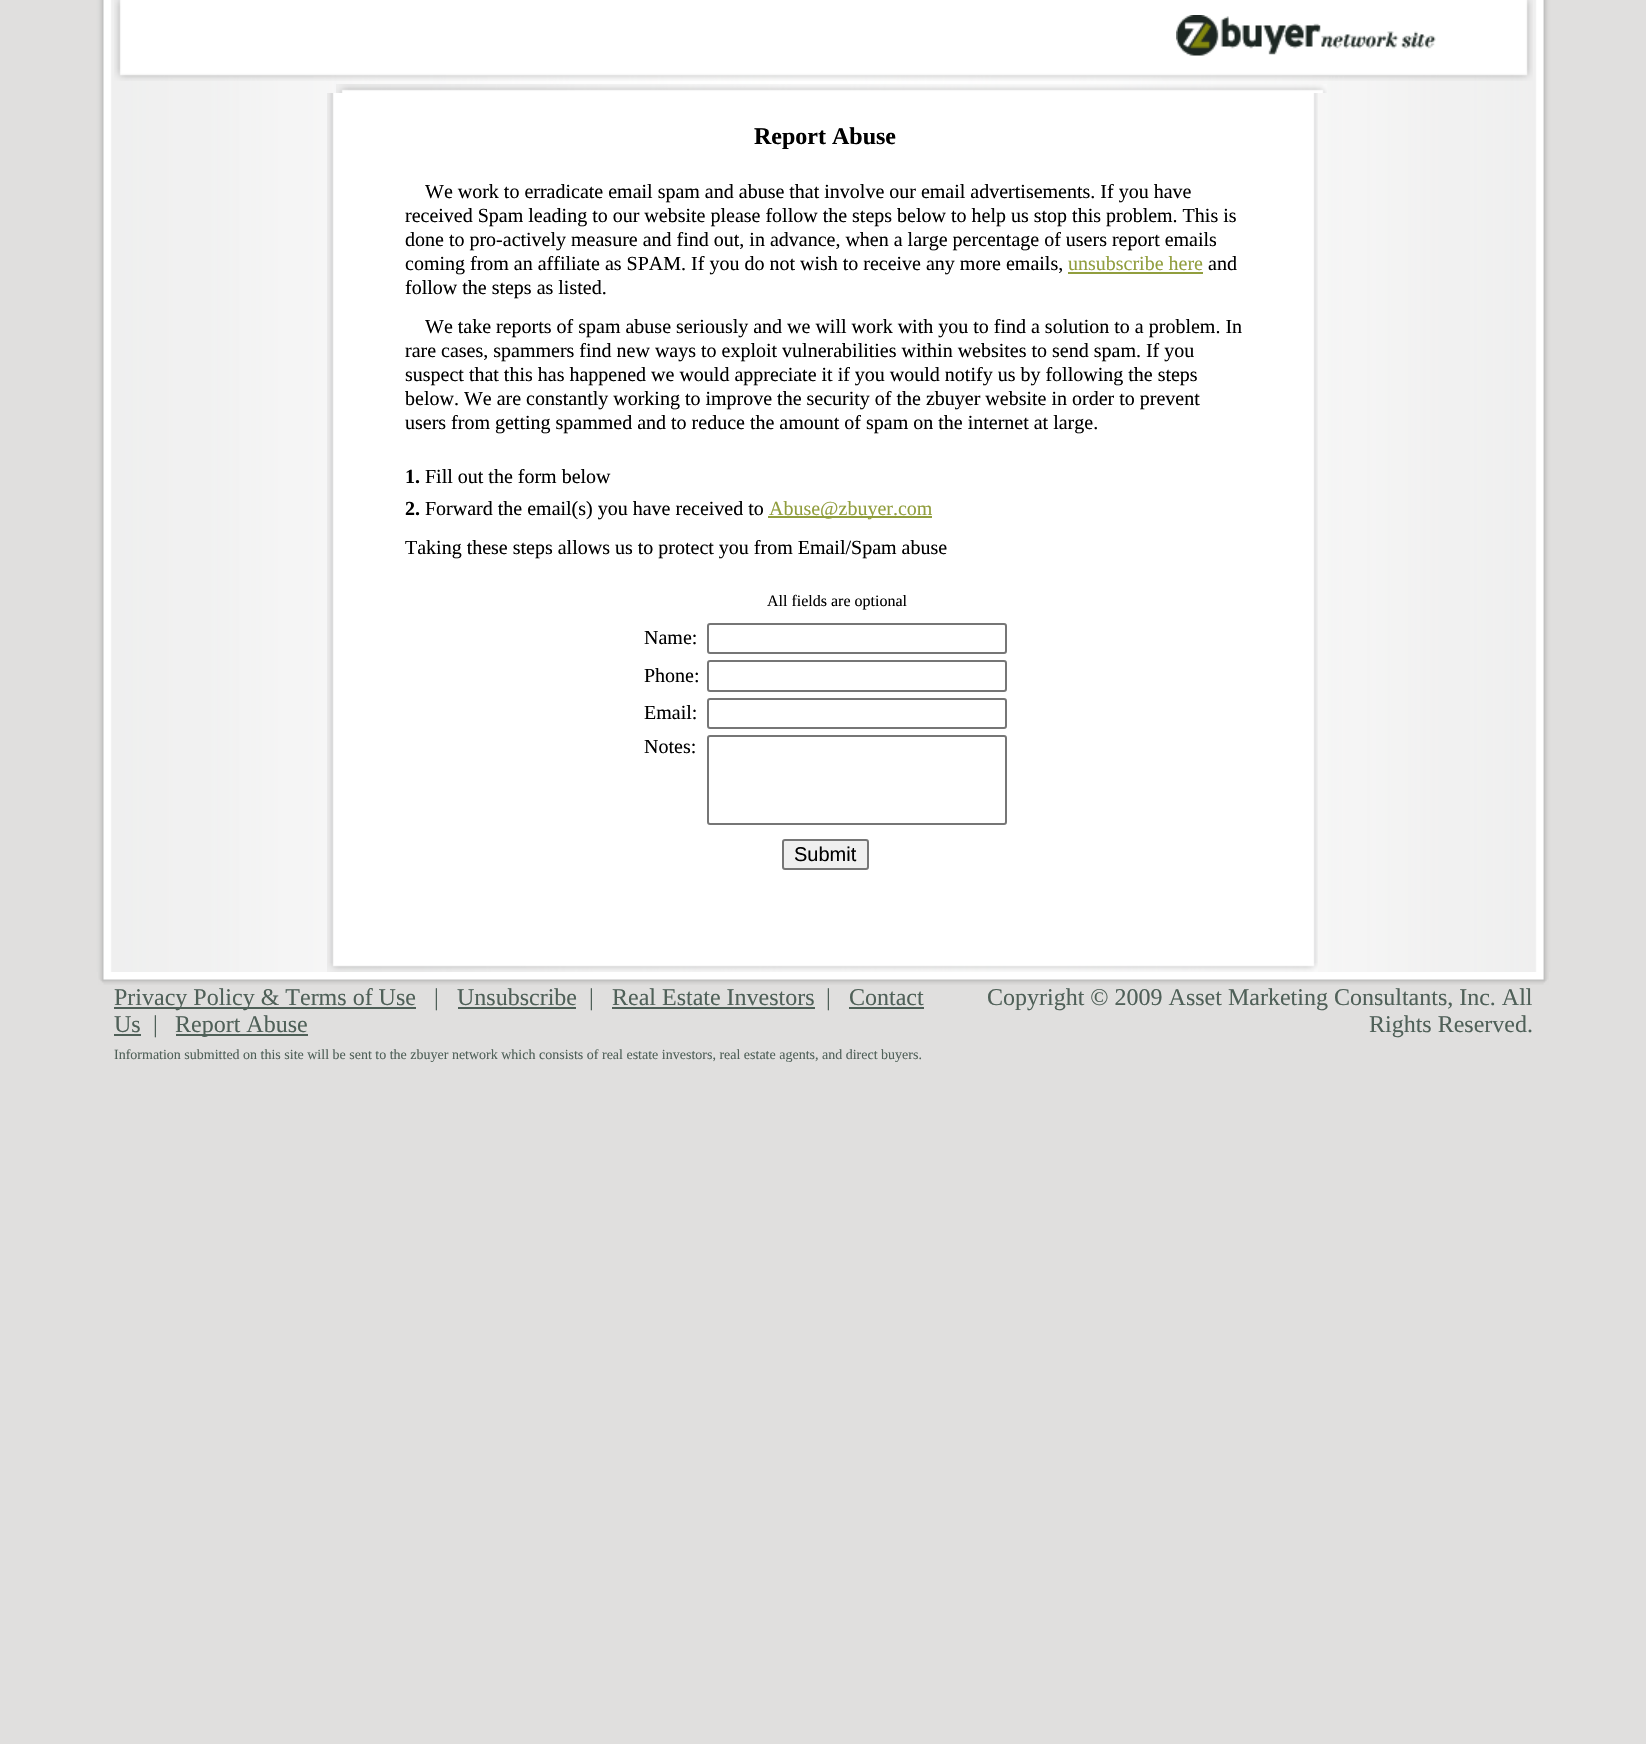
void draw(SkCanvas* canvas) {
	SkPaint fill;
	fill.setAntiAlias(true);
	auto makeFont = [&](const char* family, int weight, float size, bool italic = false) {
		SkFontStyle style(weight, SkFontStyle::kNormal_Width,
			italic ? SkFontStyle::kItalic_Slant : SkFontStyle::kUpright_Slant);
		SkFont result(fontMgr->matchFamilyStyle(family, style), size);
		result.setSubpixel(true);
		return result;
	};
	auto text = [&](const char* s, float x, float y, const SkFont& font) {
		canvas->drawString(s, x, y, font, fill);
	};
	auto box = [&](float l, float t, float r, float b) {
		canvas->drawRect(SkRect::MakeLTRB(l, t, r, b), fill);
	};
	auto picture = [&](const char* path, float l, float t, float r, float b) {
		auto image = SkImages::DeferredFromEncodedData(SkData::MakeFromFileName(path));
		canvas->drawImageRect(image, SkRect::MakeLTRB(l, t, r, b), SkSamplingOptions());
	};
	canvas->clear(0xFFE0DFDE);
	picture("image0.png", 96, 0, 1551, 972);
	picture("image1.png", 114, 0, 1533, 81);
	picture("image2.png", 1176, 15, 1436, 56);
	picture("image3.png", 336, 84, 1327, 93);
	picture("image4.png", 327, 93, 1318, 963);
	fill.setColor(0xFF919E3E);
	box(1068, 272, 1203, 274);
	box(768, 516, 932, 518);
	fill.setStyle(SkPaint::kStroke_Style);
	fill.setStrokeWidth(2);
	fill.setColor(0xFF767676);
	canvas->drawRoundRect(SkRect::MakeLTRB(708, 624, 1006, 653), 2, 2, fill);
	canvas->drawRoundRect(SkRect::MakeLTRB(708, 661, 1006, 691), 2, 2, fill);
	canvas->drawRoundRect(SkRect::MakeLTRB(708, 699, 1006, 728), 2, 2, fill);
	canvas->drawRoundRect(SkRect::MakeLTRB(708, 736, 1006, 824), 2, 2, fill);
	fill.setStyle(SkPaint::kFill_Style);
	fill.setColor(0xFFEFEFEF);
	canvas->drawRoundRect(SkRect::MakeLTRB(783, 840, 868, 869), 2, 2, fill);
	fill.setStyle(SkPaint::kStroke_Style);
	fill.setColor(0xFF767676);
	canvas->drawRoundRect(SkRect::MakeLTRB(783, 840, 868, 869), 2, 2, fill);
	picture("image5.png", 327, 963, 1318, 972);
	picture("image6.png", 98, 972, 1549, 985);
	fill.setStyle(SkPaint::kFill_Style);
	fill.setColor(0xFF4F6058);
	box(114, 1007, 416, 1009);
	box(458, 1007, 576, 1009);
	box(612, 1007, 815, 1009);
	box(849, 1007, 924, 1009);
	box(114, 1034, 141, 1036);
	box(176, 1034, 308, 1036);
	auto font1 = makeFont("Liberation Serif", 700, 24);
	fill.setColor(0xFF000000);
	text("Report Abuse", 754, 144, font1);
	auto font2 = makeFont("Liberation Serif", 400, 20);
	text("We work to erradicate email spam and abuse that involve our email advertisements. If you have", 425, 198, font2);
	text("received Spam leading to our website please follow the steps below to help us stop this problem. This is", 405, 222, font2);
	text("done to pro-actively measure and find out, in advance, when a large percentage of users report emails", 405, 246, font2);
	text("coming from an affiliate as SPAM. If you do not wish to receive any more emails,", 405, 270, font2);
	fill.setColor(0xFF919E3E);
	text("unsubscribe here", 1068, 270, font2);
	fill.setColor(0xFF000000);
	text("and", 1208, 270, font2);
	text("follow the steps as listed.", 405, 294, font2);
	text("We take reports of spam abuse seriously and we will work with you to find a solution to a problem. In", 425, 333, font2);
	text("rare cases, spammers find new ways to exploit vulnerabilities within websites to send spam. If you", 405, 357, font2);
	text("suspect that this has happened we would appreciate it if you would notify us by following the steps", 405, 381, font2);
	text("below. We are constantly working to improve the security of the zbuyer website in order to prevent", 405, 405, font2);
	text("users from getting spammed and to reduce the amount of spam on the internet at large.", 405, 429, font2);
	auto font3 = makeFont("Liberation Serif", 700, 20);
	text("1.", 405, 483, font3);
	text("Fill out the form below", 425, 483, font2);
	text("2.", 405, 515, font3);
	text("Forward the email(s) you have received to", 425, 515, font2);
	fill.setColor(0xFF919E3E);
	text("Abuse@zbuyer.com", 769, 515, font2);
	fill.setColor(0xFF000000);
	text("Taking these steps allows us to protect you from Email/Spam abuse", 405, 554, font2);
	auto font4 = makeFont("Liberation Serif", 400, 16);
	text("All fields are optional", 767, 606, font4);
	text("Name:", 644, 644, font2);
	text("Phone:", 644, 682, font2);
	text("Email:", 644, 719, font2);
	text("Notes:", 644, 753, font2);
	auto font5 = makeFont("Liberation Sans", 400, 20);
	text("Submit", 794, 861, font5);
	auto font6 = makeFont("Liberation Serif", 400, 24);
	fill.setColor(0xFF4F6058);
	text("Privacy Policy & Terms of Use", 114, 1005, font6);
	text("|", 434, 1005, font6);
	text("Unsubscribe", 457, 1005, font6);
	text("|", 589, 1005, font6);
	text("Real Estate Investors", 612, 1005, font6);
	text("|", 826, 1005, font6);
	text("Contact", 849, 1005, font6);
	text("Us", 114, 1032, font6);
	text("|", 153, 1032, font6);
	text("Report Abuse", 175, 1032, font6);
	text("Copyright © 2009 Asset Marketing Consultants, Inc. All", 987, 1005, font6);
	text("Rights Reserved.", 1369, 1032, font6);
	auto font7 = makeFont("Liberation Serif", 400, 14);
	text("Information submitted on this site will be sent to the zbuyer network which consists of real estate investors, real estate agents, and direct buyers.", 114, 1059, font7);
}
